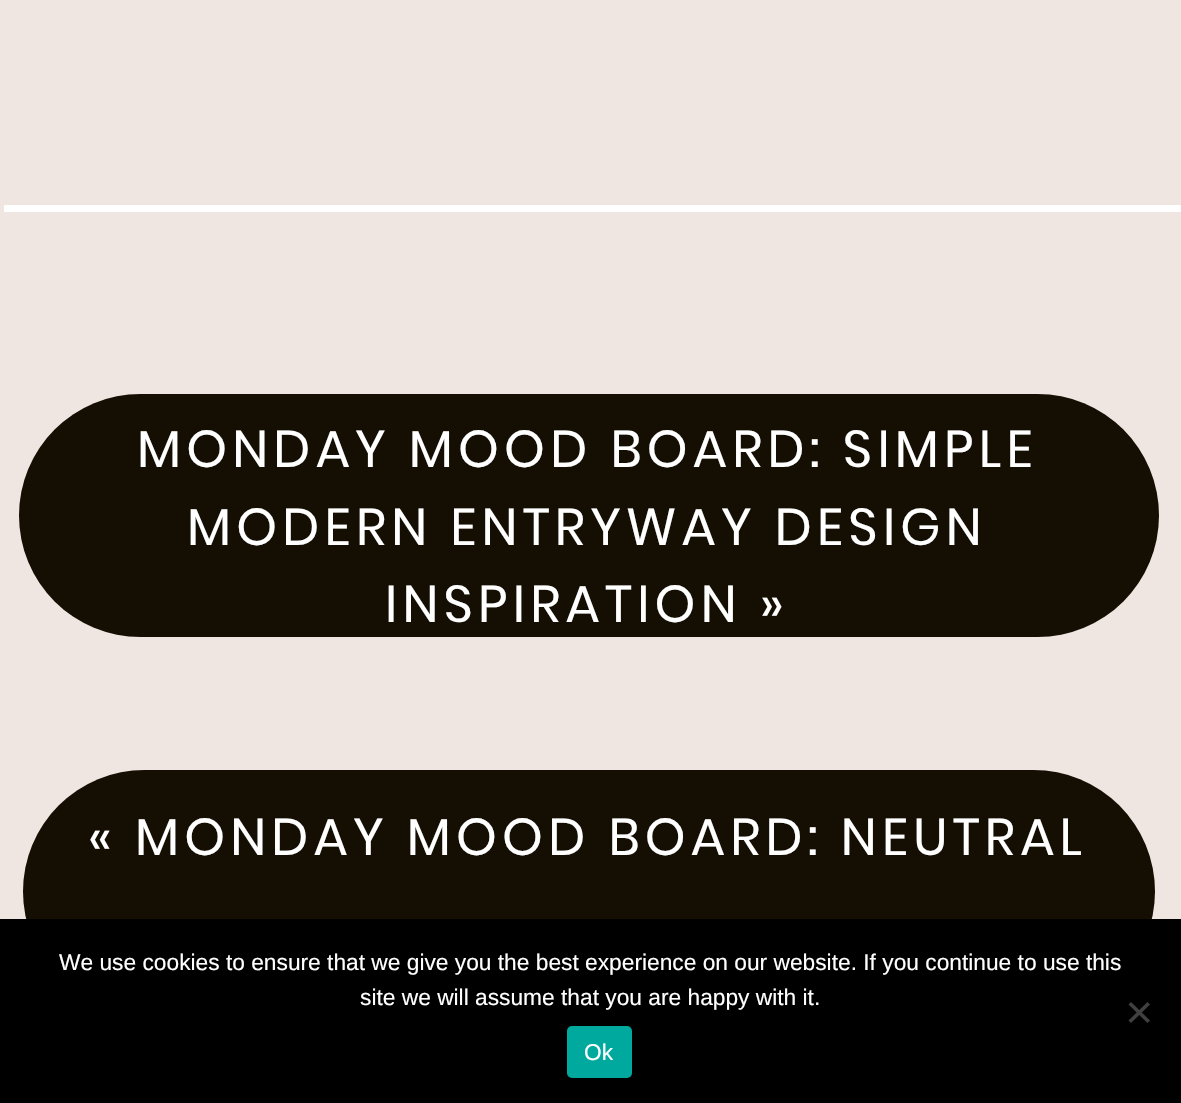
void draw(SkCanvas* canvas) {
	SkPaint fill;
	fill.setAntiAlias(true);
	auto makeFont = [&](const char* family, int weight, float size, bool italic = false) {
		SkFontStyle style(weight, SkFontStyle::kNormal_Width,
			italic ? SkFontStyle::kItalic_Slant : SkFontStyle::kUpright_Slant);
		SkFont result(fontMgr->matchFamilyStyle(family, style), size);
		result.setSubpixel(true);
		return result;
	};
	auto text = [&](const char* s, float x, float y, const SkFont& font) {
		canvas->drawString(s, x, y, font, fill);
	};
	auto spacedText = [&](const char* s, float x, float y, const SkFont& font, const SkPaint& ink, float letter, float word) {
		std::vector<SkGlyphID> glyphs(font.countText(s, strlen(s), SkTextEncoding::kUTF8));
		std::vector<float> xs(glyphs.size());
		font.textToGlyphs(s, strlen(s), SkTextEncoding::kUTF8, glyphs);
		font.getXPos(glyphs, xs, x);
		float extra = 0;
		for (size_t i = 0; i < glyphs.size(); i++) {
			xs[i] += extra;
			extra += letter + word * (glyphs[i] == font.unicharToGlyph(' '));
		}
		canvas->drawTextBlob(SkTextBlob::MakeFromPosHGlyphs(glyphs, xs, y, font), 0, 0, ink);
	};
	auto box = [&](float l, float t, float r, float b) {
		canvas->drawRect(SkRect::MakeLTRB(l, t, r, b), fill);
	};
	auto roundBox = [&](float l, float t, float r, float b, float radius) {
		canvas->drawRoundRect(SkRect::MakeLTRB(l, t, r, b), radius, radius, fill);
	};
	canvas->clear(0xFFEFE6E2);
	fill.setColor(0xFFFFFFFF);
	box(4, 205, 1181, 212);
	fill.setColor(0xFF140E03);
	roundBox(19, 394, 1159, 637, 121.5f);
	roundBox(23, 770, 1155, 1013, 121.5f);
	fill.setColor(0xFF000000);
	box(0, 919, 1181, 1103);
	fill.setColor(0xFF404040);
	canvas->drawPath(SkPathBuilder().moveTo(1147.5f, 1002).lineTo(1150, 1004.5f).lineTo(1131, 1023).lineTo(1128.5f, 1020.5f).close().detach(), fill);
	canvas->drawPath(SkPathBuilder().moveTo(1128.5f, 1004.5f).lineTo(1131, 1002).lineTo(1150, 1020.5f).lineTo(1147.5f, 1023).close().detach(), fill);
	fill.setColor(0xFF00A99D);
	roundBox(567, 1026, 632, 1078, 5);
	auto font1 = makeFont("Poppins", 400, 51.7f);
	fill.setColor(0xFFFFFFFF);
	spacedText("MONDAY MOOD BOARD: SIMPLE", 137, 467, font1, fill, 5.2f, 0);
	spacedText("MODERN ENTRYWAY DESIGN", 187, 545, font1, fill, 5.2f, 0);
	spacedText("INSPIRATION »", 385, 622, font1, fill, 5.2f, 0);
	spacedText("« MONDAY MOOD BOARD: NEUTRAL", 88, 855, font1, fill, 5.2f, 0);
	auto font2 = makeFont("Liberation Sans", 400, 22.75f);
	text("We use cookies to ensure that we give you the best experience on our website. If you continue to use this", 59, 970, font2);
	text("site we will assume that you are happy with it.", 360, 1005, font2);
	text("Ok", 584, 1060, font2);
}
